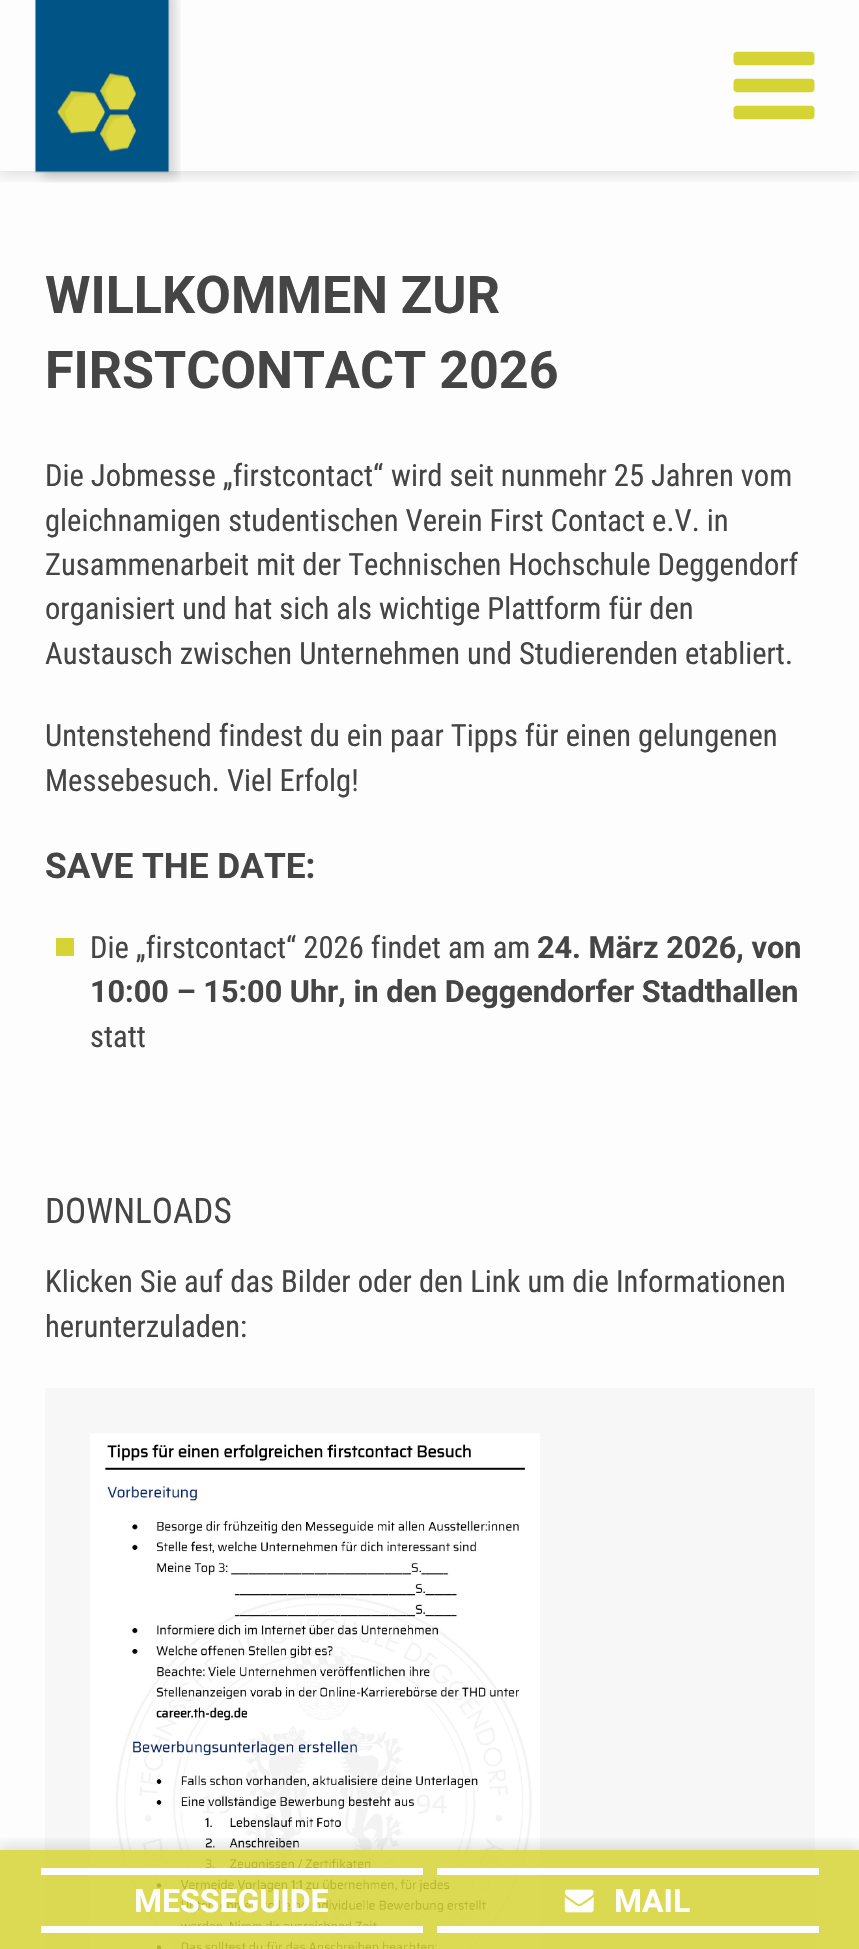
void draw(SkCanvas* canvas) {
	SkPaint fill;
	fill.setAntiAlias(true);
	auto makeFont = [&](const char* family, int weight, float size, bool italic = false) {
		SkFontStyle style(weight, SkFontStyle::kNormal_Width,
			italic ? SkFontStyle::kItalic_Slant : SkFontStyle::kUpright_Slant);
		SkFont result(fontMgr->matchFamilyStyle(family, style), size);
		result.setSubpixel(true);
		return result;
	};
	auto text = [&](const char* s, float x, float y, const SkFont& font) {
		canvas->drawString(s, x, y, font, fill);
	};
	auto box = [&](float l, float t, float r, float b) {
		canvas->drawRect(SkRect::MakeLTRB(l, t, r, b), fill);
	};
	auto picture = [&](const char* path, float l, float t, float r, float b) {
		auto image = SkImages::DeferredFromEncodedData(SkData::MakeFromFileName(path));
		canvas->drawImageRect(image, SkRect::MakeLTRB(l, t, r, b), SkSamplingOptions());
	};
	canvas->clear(0xFFFDFDFD);
	canvas->save();
	canvas->clipRect(SkRect::MakeLTRB(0, 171, 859, 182));
	fill.setColor(0x26000000);
	fill.setMaskFilter(SkMaskFilter::MakeBlur(kNormal_SkBlurStyle, 8));
	canvas->drawRect(SkRect::MakeLTRB(-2, -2, 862, 173), fill);
	fill.setMaskFilter(nullptr);
	canvas->restore();
	picture("image0.png", 34, 0, 181, 183);
	picture("image1.png", 733, 51, 815, 120);
	fill.setColor(0xFFD6D434);
	box(56, 938, 74, 956);
	fill.setColor(0xFFF7F7F7);
	box(45, 1388, 815, 1949);
	picture("image2.png", 90, 1433, 540, 1949);
	canvas->save();
	canvas->clipRect(SkRect::MakeLTRB(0, 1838, 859, 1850));
	fill.setColor(0x26000000);
	fill.setMaskFilter(SkMaskFilter::MakeBlur(kNormal_SkBlurStyle, 8));
	canvas->drawRect(SkRect::MakeLTRB(-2, 1847, 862, 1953), fill);
	fill.setMaskFilter(nullptr);
	canvas->restore();
	fill.setColor(0xD9D6D434);
	box(0, 1850, 859, 1949);
	fill.setColor(0xFFFDFDFD);
	box(41, 1868, 423, 1875);
	box(41, 1926, 423, 1933);
	box(437, 1868, 819, 1875);
	box(437, 1926, 819, 1933);
	picture("image3.png", 564, 1889, 594, 1913);
	auto font1 = makeFont("Roboto", 700, 52);
	fill.setColor(0xFF454545);
	text("WILLKOMMEN ZUR", 45, 313, font1);
	text("FIRSTCONTACT 2026", 45, 388, font1);
	auto font2 = makeFont("Roboto Condensed", 400, 30.6f);
	text("Die Jobmesse „firstcontact“", 45, 486, font2);
	text("wird seit nunmehr 25 Jahren vom", 391, 486, font2);
	text("gleichnamigen studentischen Verein First Contact e.V. in", 45, 531, font2);
	text("Zusammenarbeit mit der Technischen Hochschule Deggendorf", 45, 575, font2);
	text("organisiert und hat sich als wichtige Plattform für den", 45, 619, font2);
	text("Austausch zwischen Unternehmen und Studierenden etabliert.", 45, 664, font2);
	text("Untenstehend findest du ein paar Tipps für einen gelungenen", 45, 746, font2);
	text("Messebesuch. Viel Erfolg!", 45, 791, font2);
	auto font3 = makeFont("Roboto", 700, 35.25f);
	text("SAVE THE DATE:", 45, 878, font3);
	text("Die „firstcontact“ 2026 findet am am", 90, 958, font2);
	auto font4 = makeFont("Roboto", 700, 30.6f);
	text("24. März 2026, von", 537, 958, font4);
	text("10:00 – 15:00 Uhr, in den Deggendorfer Stadthallen", 90, 1002, font4);
	text("statt", 90, 1047, font2);
	auto font5 = makeFont("Roboto Condensed", 400, 35.25f);
	text("DOWNLOADS", 45, 1223, font5);
	text("Klicken Sie auf das Bilder oder den Link um die Informationen", 45, 1292, font2);
	text("herunterzuladen:", 45, 1337, font2);
	auto font6 = makeFont("Roboto", 700, 32);
	fill.setColor(0xFFFDFDFD);
	text("MESSEGUIDE", 134, 1912, font6);
	text("MAIL", 614, 1912, font6);
}
